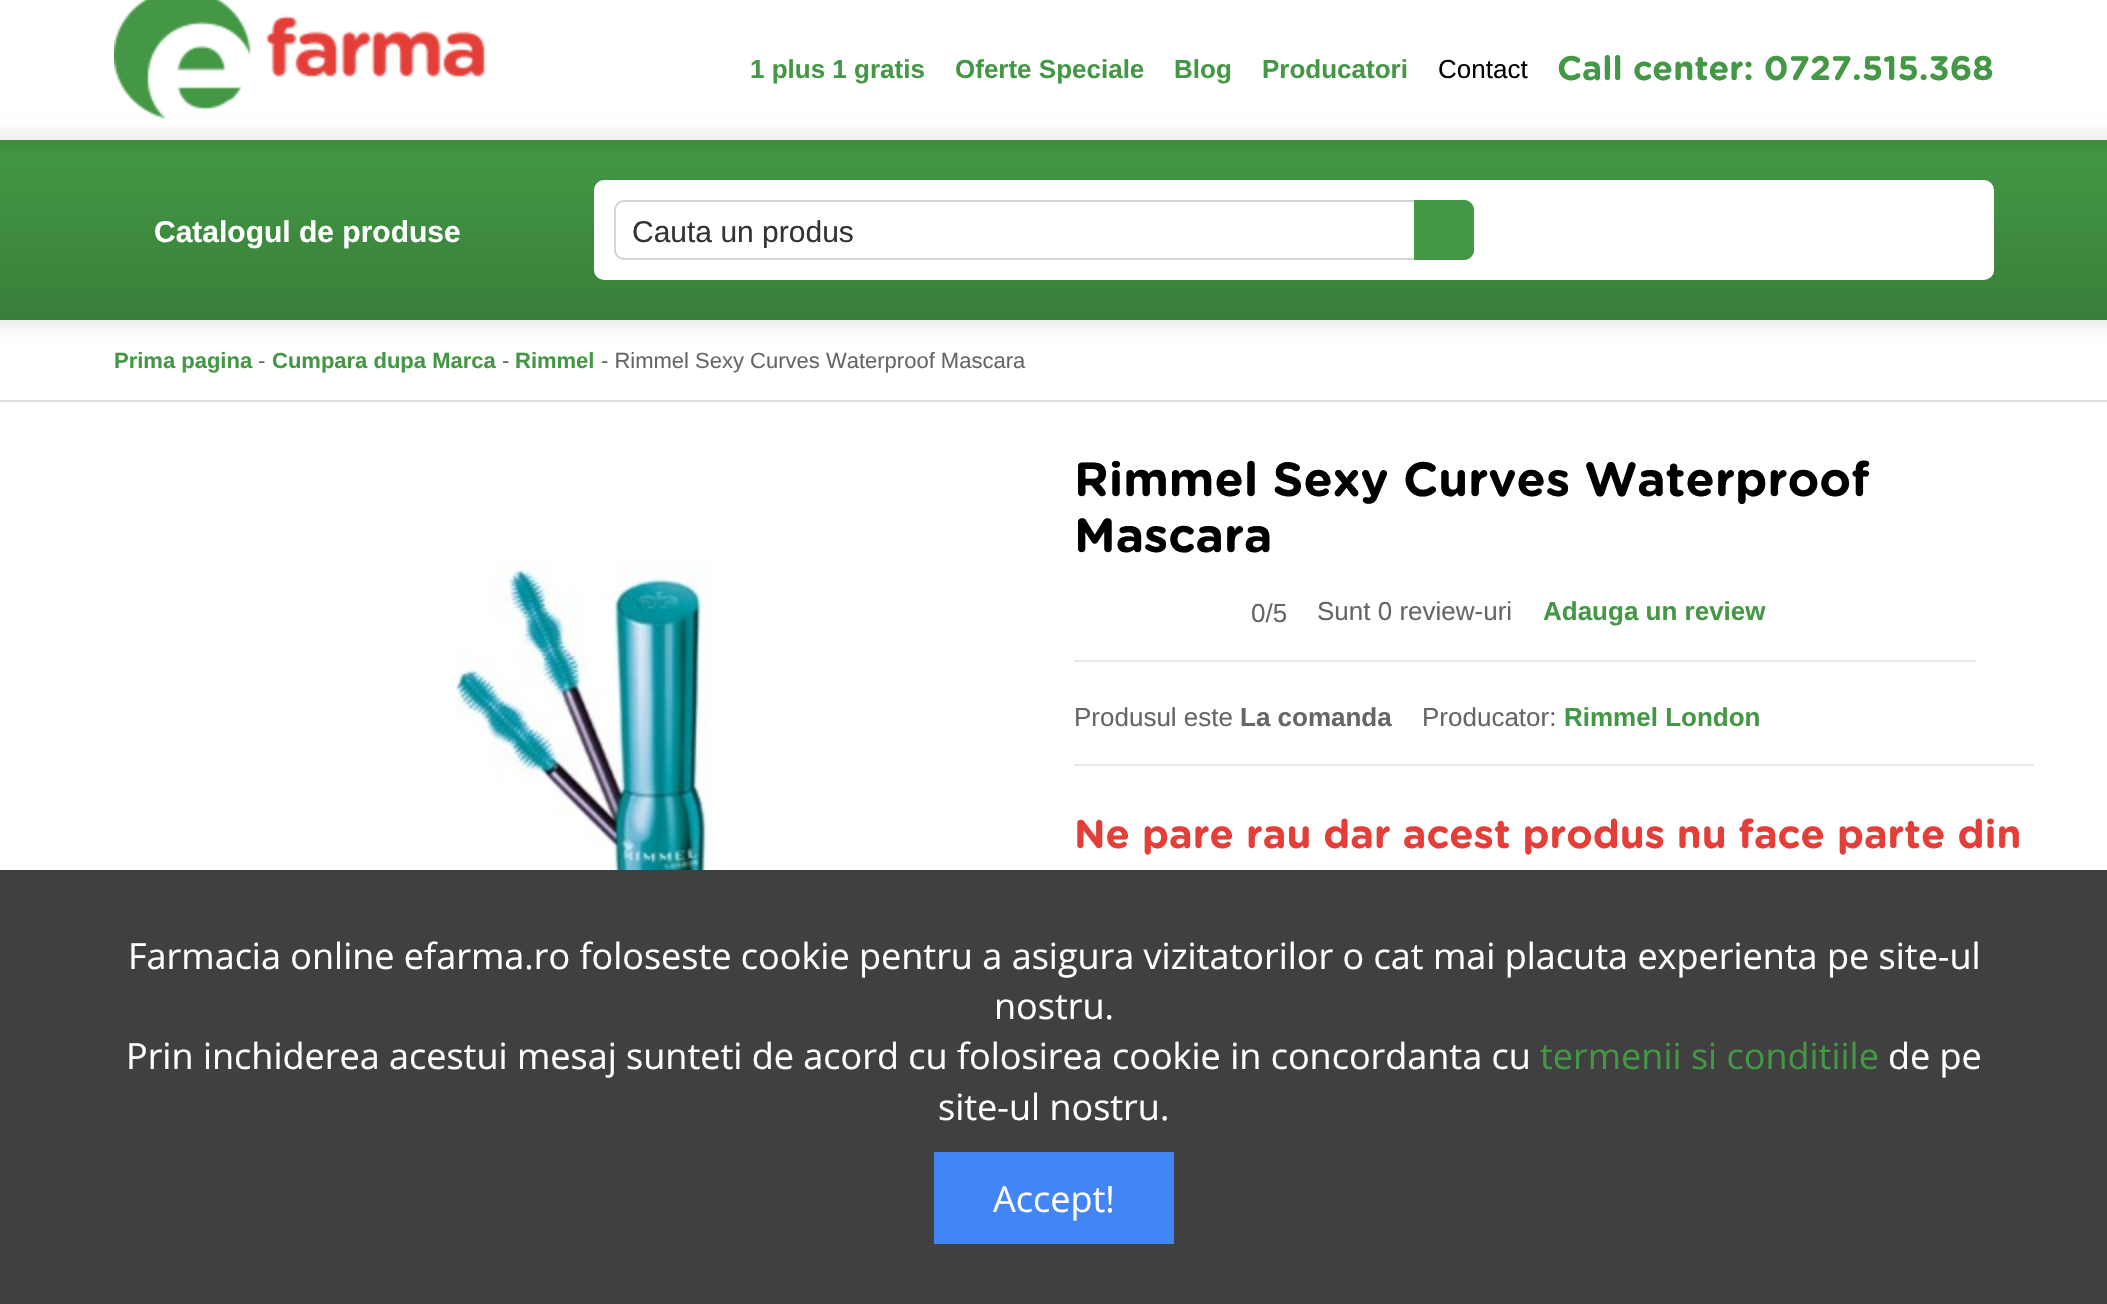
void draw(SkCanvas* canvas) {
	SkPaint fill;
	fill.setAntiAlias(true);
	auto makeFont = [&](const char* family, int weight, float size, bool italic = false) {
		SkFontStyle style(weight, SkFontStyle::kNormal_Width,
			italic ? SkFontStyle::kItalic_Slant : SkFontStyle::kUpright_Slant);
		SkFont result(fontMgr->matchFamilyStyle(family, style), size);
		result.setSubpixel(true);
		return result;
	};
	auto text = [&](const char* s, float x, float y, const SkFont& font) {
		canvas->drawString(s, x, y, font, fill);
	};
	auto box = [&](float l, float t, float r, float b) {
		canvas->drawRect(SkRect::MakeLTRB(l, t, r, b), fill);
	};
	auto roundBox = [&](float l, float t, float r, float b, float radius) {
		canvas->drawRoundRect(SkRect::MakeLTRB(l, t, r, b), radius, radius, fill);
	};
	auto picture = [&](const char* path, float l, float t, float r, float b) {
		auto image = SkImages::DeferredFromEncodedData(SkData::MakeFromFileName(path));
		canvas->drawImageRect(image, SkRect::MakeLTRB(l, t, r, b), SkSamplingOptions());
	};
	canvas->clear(0xFFFFFFFF);
	picture("image0.png", 114, 0, 485, 120);
	fill.setColor(0x0F000000);
	fill.setMaskFilter(SkMaskFilter::MakeBlur(kNormal_SkBlurStyle, 5));
	canvas->drawRect(SkRect::MakeLTRB(-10, 130, 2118, 330), fill);
	fill.setMaskFilter(nullptr);
	picture("image1.png", 0, 140, 2107, 320);
	fill.setColor(0xFFFFFFFF);
	roundBox(594, 180, 1994, 280, 10);
	fill.setStyle(SkPaint::kStroke_Style);
	fill.setStrokeWidth(2);
	fill.setColor(0xFFD3D3D3);
	canvas->drawRoundRect(SkRect::MakeLTRB(615, 201, 1473, 259), 9, 9, fill);
	fill.setStyle(SkPaint::kFill_Style);
	fill.setColor(0xFF439745);
	canvas->drawPath(SkPathBuilder().moveTo(1414, 200).lineTo(1464, 200).cubicTo(1469.5f, 200, 1474, 204.5f, 1474, 210).lineTo(1474, 250).cubicTo(1474, 255.5f, 1469.5f, 260, 1464, 260).lineTo(1414, 260).close().detach(), fill);
	fill.setColor(0xFFDEDEDE);
	box(0, 400, 2107, 402);
	picture("image2.png", 455, 558, 842, 870);
	fill.setColor(0xFFE7E7E7);
	box(1074, 660, 1976, 662);
	box(1074, 764, 2034, 766);
	fill.setColor(0xFF404040);
	box(0, 870, 2107, 1304);
	fill.setColor(0xFF4285F4);
	box(934, 1152, 1174, 1244);
	auto font1 = makeFont("Liberation Sans", 700, 26);
	fill.setColor(0xFF439745);
	text("1 plus 1 gratis", 750, 78, font1);
	text("Oferte Speciale", 955, 78, font1);
	text("Blog", 1174, 78, font1);
	text("Producatori", 1262, 78, font1);
	auto font2 = makeFont("Liberation Sans", 400, 26);
	fill.setColor(0xFF000000);
	text("Contact", 1438, 78, font2);
	auto font3 = makeFont("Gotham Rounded", 700, 34);
	fill.setColor(0xFF439745);
	text("Call center: 0727.515.368", 1557, 80, font3);
	auto font4 = makeFont("Liberation Sans", 700, 30);
	fill.setColor(0xFFFFFFFF);
	text("Catalogul de produse", 154, 242, font4);
	canvas->save();
	canvas->clipRect(SkRect::MakeLTRB(632, 214, 1396, 248));
	auto font5 = makeFont("Liberation Sans", 400, 30);
	fill.setColor(0xFF333333);
	text("Cauta un produs", 632, 242, font5);
	canvas->restore();
	auto font6 = makeFont("Liberation Sans", 700, 22);
	fill.setColor(0xFF439745);
	text("Prima pagina", 114, 368, font6);
	auto font7 = makeFont("Liberation Sans", 400, 22);
	fill.setColor(0xFF666666);
	text("-", 258, 368, font7);
	fill.setColor(0xFF439745);
	text("Cumpara dupa Marca", 272, 368, font6);
	fill.setColor(0xFF666666);
	text("-", 502, 368, font7);
	fill.setColor(0xFF439745);
	text("Rimmel", 515, 368, font6);
	fill.setColor(0xFF666666);
	text("- Rimmel Sexy Curves Waterproof Mascara", 601, 368, font7);
	auto font8 = makeFont("Gotham Rounded", 700, 48);
	fill.setColor(0xFF000000);
	text("Rimmel Sexy Curves Waterproof", 1074, 496, font8);
	text("Mascara", 1074, 552, font8);
	fill.setColor(0xFF666666);
	text("0/5", 1251, 622, font2);
	text("Sunt 0 review-uri", 1317, 620, font2);
	fill.setColor(0xFF439745);
	text("Adauga un review", 1543, 620, font1);
	fill.setColor(0xFF666666);
	text("Produsul este", 1074, 726, font2);
	text("La comanda", 1240, 726, font1);
	text("Producator:", 1422, 726, font2);
	fill.setColor(0xFF439745);
	text("Rimmel London", 1564, 726, font1);
	auto font9 = makeFont("Gotham Rounded", 700, 40);
	fill.setColor(0xFFE43E39);
	text("Ne pare rau dar acest produs nu face parte din", 1074, 848, font9);
	auto font10 = makeFont("Open Sans", 400, 36);
	fill.setColor(0xFFFFFFFF);
	text("Farmacia online efarma.ro foloseste cookie pentru a asigura vizitatorilor o cat mai placuta experienta pe site-ul", 128, 969, font10);
	text("nostru.", 994, 1019, font10);
	text("Prin inchiderea acestui mesaj sunteti de acord cu folosirea cookie in concordanta cu", 126, 1069, font10);
	fill.setColor(0xFF439745);
	text("termenii si conditiile", 1540, 1069, font10);
	fill.setColor(0xFFFFFFFF);
	text("de pe", 1888, 1069, font10);
	text("site-ul nostru.", 938, 1120, font10);
	text("Accept!", 993, 1212, font10);
}
